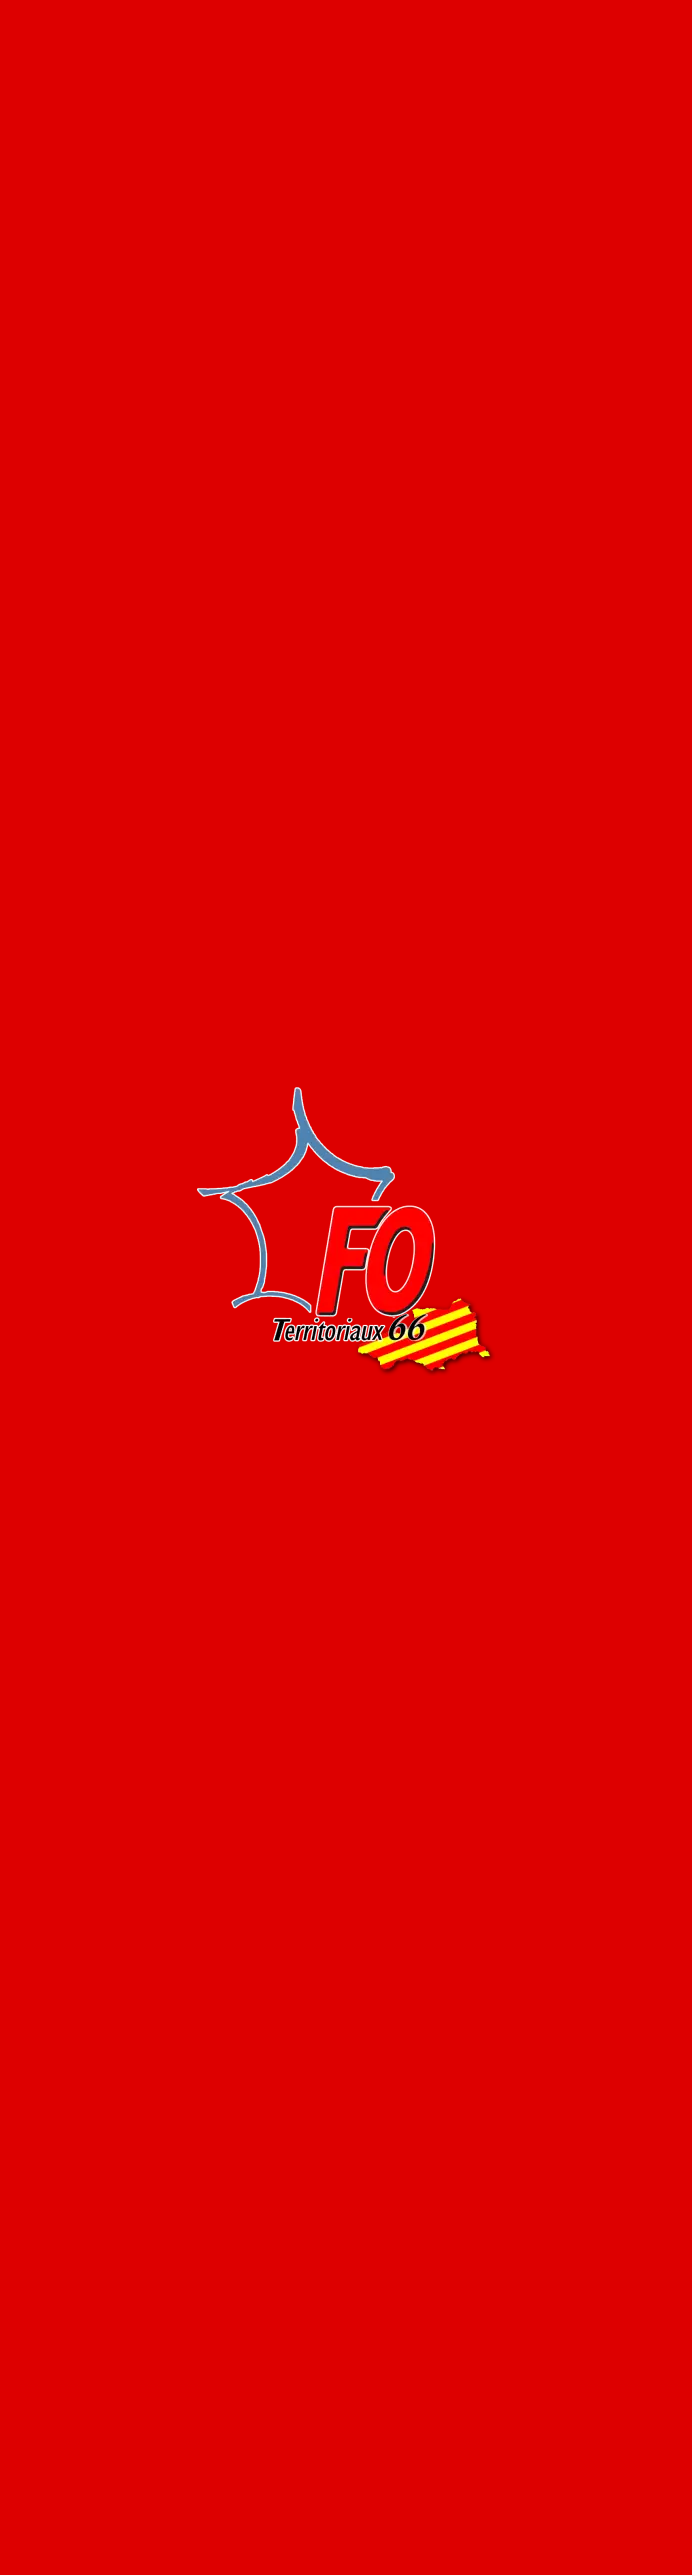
void draw(SkCanvas* canvas) {
	SkPaint fill;
	fill.setAntiAlias(true);
	auto picture = [&](const char* path, float l, float t, float r, float b) {
		auto image = SkImages::DeferredFromEncodedData(SkData::MakeFromFileName(path));
		canvas->drawImageRect(image, SkRect::MakeLTRB(l, t, r, b), SkSamplingOptions());
	};
	canvas->clear(0xFFDD0000);
	picture("image0.png", 197, 1087, 495, 1376);
}
